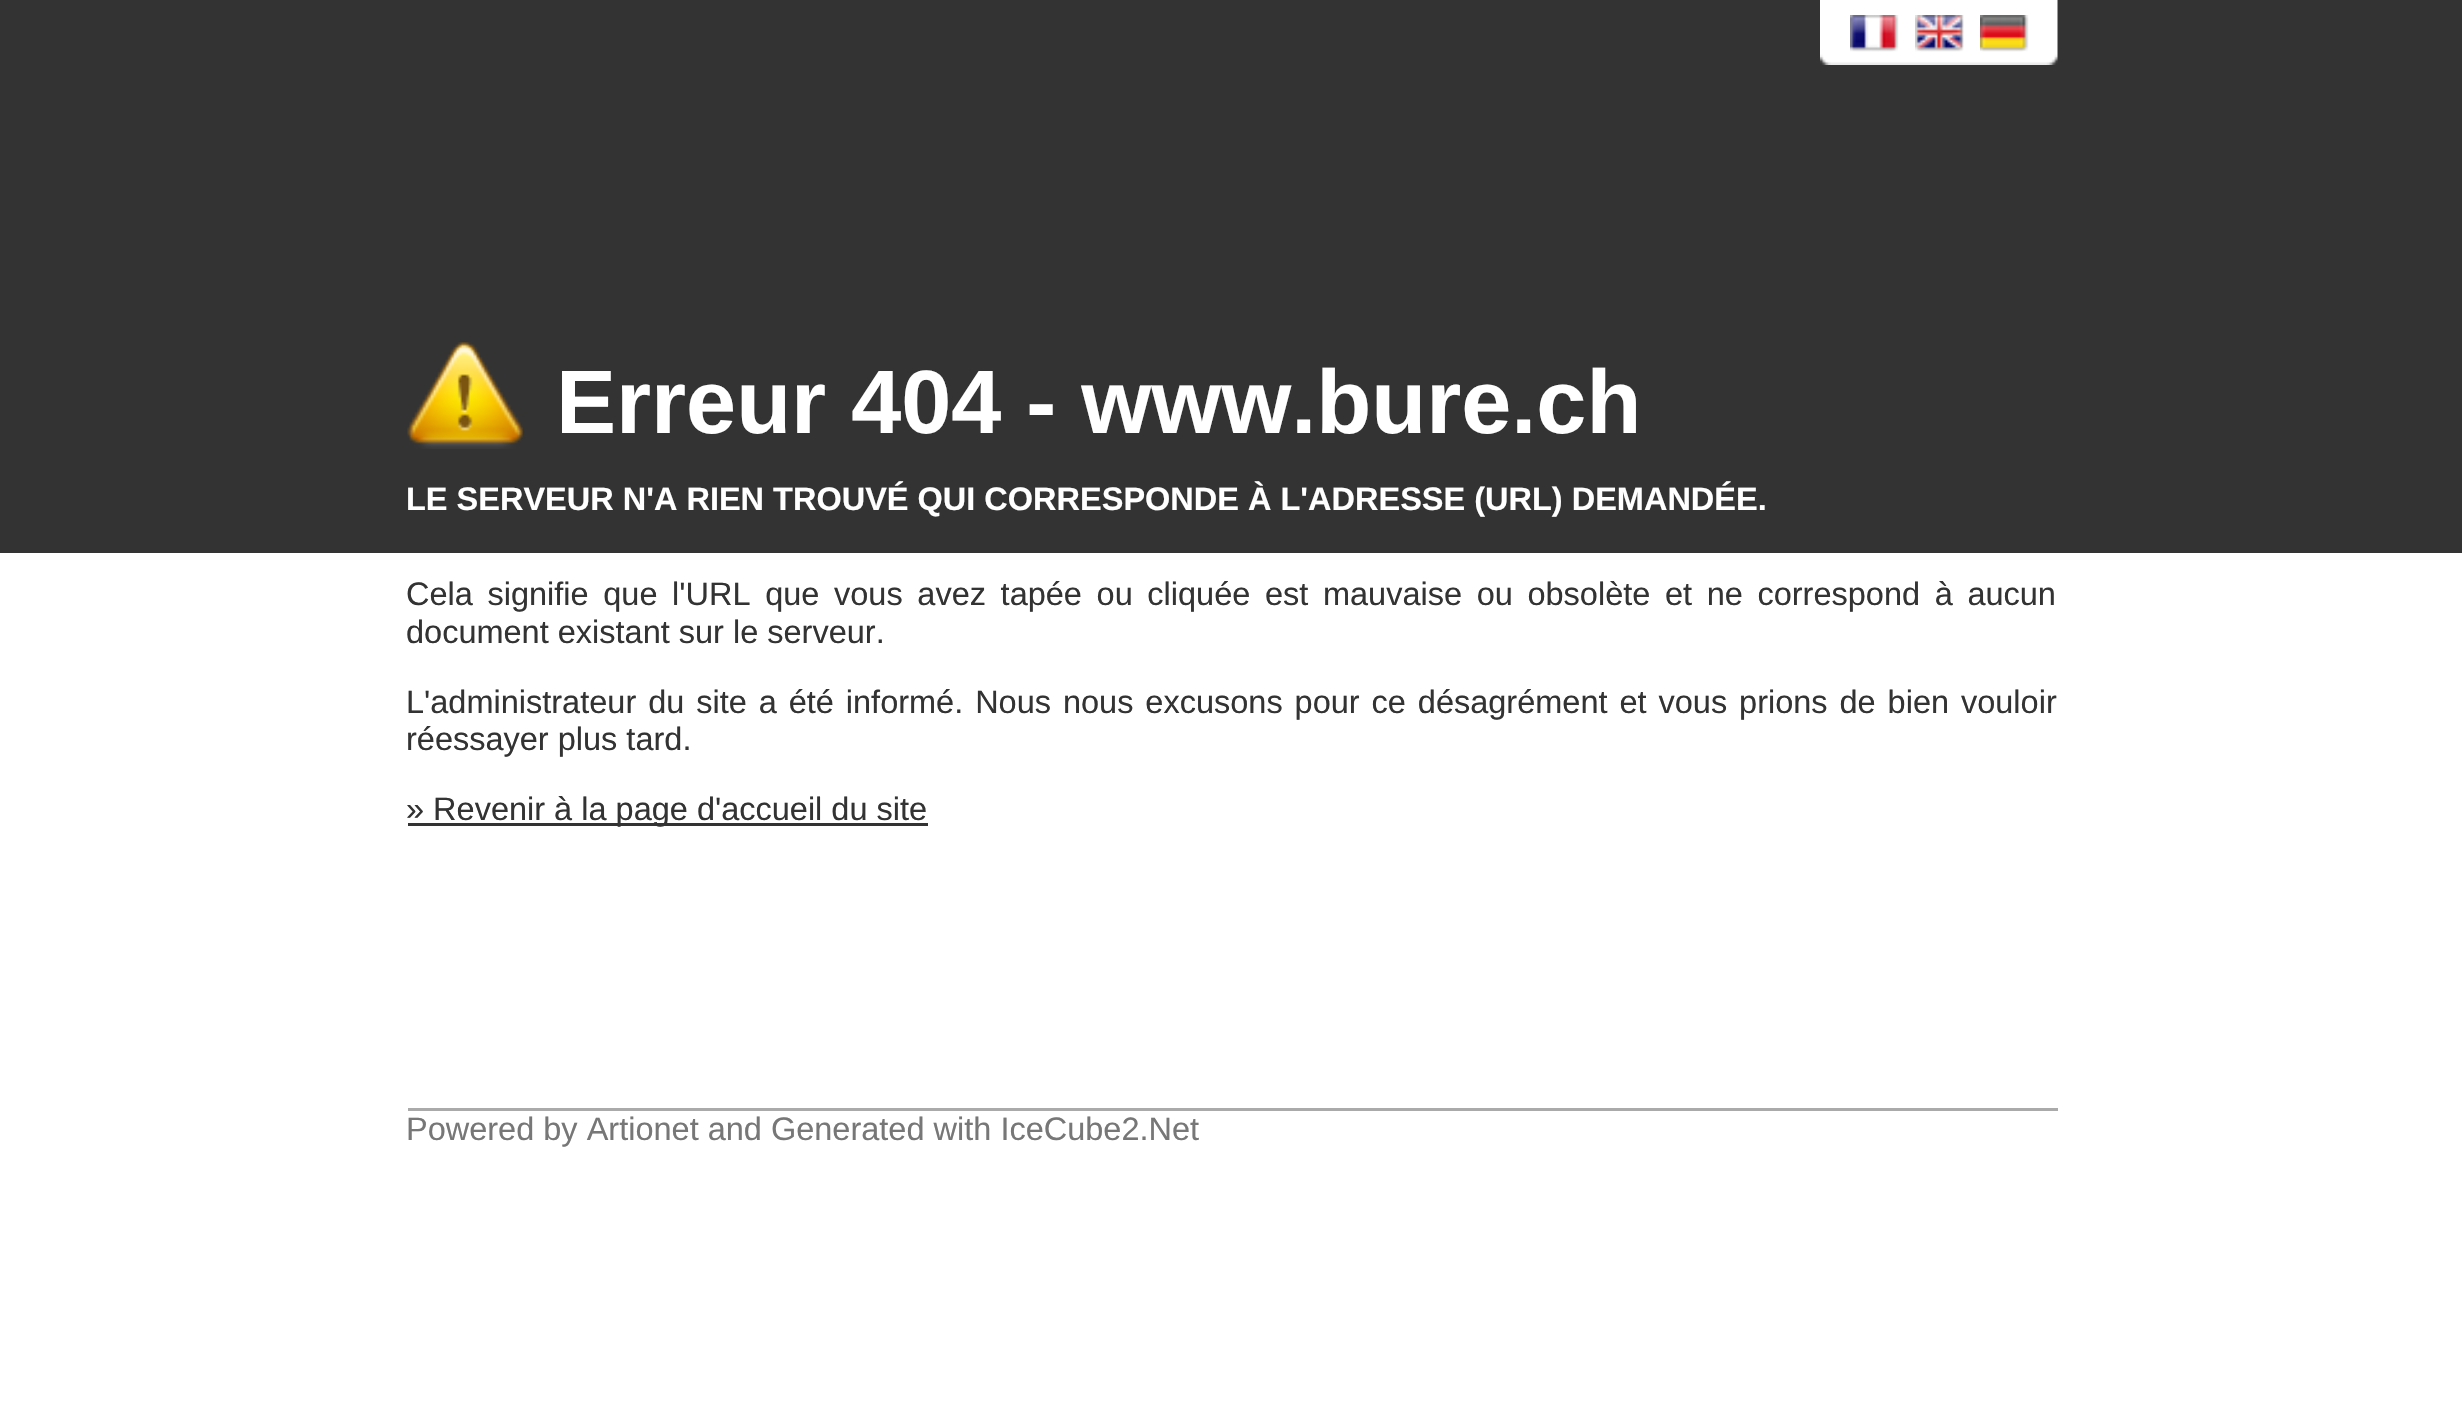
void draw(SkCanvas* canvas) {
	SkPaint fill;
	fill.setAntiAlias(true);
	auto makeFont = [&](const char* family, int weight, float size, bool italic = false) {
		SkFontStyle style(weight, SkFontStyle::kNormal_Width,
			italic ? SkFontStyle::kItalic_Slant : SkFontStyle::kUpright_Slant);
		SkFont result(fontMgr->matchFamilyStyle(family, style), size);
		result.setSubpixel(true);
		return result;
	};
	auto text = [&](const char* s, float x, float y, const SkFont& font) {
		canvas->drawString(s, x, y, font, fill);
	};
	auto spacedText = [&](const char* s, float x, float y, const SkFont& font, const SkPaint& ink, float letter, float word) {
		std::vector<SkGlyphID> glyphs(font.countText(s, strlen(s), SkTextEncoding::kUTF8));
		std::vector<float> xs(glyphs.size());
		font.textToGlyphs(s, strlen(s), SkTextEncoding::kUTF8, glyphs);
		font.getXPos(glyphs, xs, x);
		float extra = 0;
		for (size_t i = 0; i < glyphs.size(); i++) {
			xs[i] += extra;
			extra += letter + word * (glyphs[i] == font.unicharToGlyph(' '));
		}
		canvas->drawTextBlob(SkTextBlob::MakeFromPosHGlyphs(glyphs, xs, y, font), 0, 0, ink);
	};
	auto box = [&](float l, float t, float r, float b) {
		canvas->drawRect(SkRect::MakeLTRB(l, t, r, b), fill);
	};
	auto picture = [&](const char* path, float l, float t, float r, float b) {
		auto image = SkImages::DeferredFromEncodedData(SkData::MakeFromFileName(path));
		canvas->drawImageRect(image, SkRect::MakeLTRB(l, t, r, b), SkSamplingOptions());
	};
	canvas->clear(0xFFFFFFFF);
	fill.setColor(0xFF333333);
	box(0, 0, 2462, 553);
	picture("image0.png", 1820, 0, 2058, 65);
	picture("image1.png", 1850, 15, 1899, 52);
	picture("image2.png", 1915, 15, 1964, 52);
	picture("image3.png", 1980, 15, 2029, 52);
	picture("image4.png", 407, 342, 523, 449);
	box(408, 823, 928, 826);
	fill.setColor(0xFFAAAAAA);
	box(408, 1108, 2058, 1111);
	auto font1 = makeFont("Liberation Sans", 700, 90);
	fill.setColor(0xFFFFFFFF);
	text("Erreur 404 - www.bure.ch", 556, 433, font1);
	auto font2 = makeFont("Liberation Sans", 700, 32.5f);
	text("LE SERVEUR N'A RIEN TROUVÉ QUI CORRESPONDE À L'ADRESSE (URL) DEMANDÉE.", 406, 510, font2);
	auto font3 = makeFont("Liberation Sans", 400, 32.5f);
	fill.setColor(0xFF333333);
	spacedText("Cela signifie que l'URL que vous avez tapée ou cliquée est mauvaise ou obsolète et ne correspond à aucun", 406, 605, font3, fill, 0, 5.6f);
	text("document existant sur le serveur.", 406, 643, font3);
	spacedText("L'administrateur du site a été informé. Nous nous excusons pour ce désagrément et vous prions de bien vouloir", 406, 713, font3, fill, 0, 2.9f);
	text("réessayer plus tard.", 406, 750, font3);
	text("» Revenir à la page d'accueil du site", 406, 820, font3);
	fill.setColor(0xFF777777);
	text("Powered by Artionet and Generated with IceCube2.Net", 406, 1140, font3);
}
